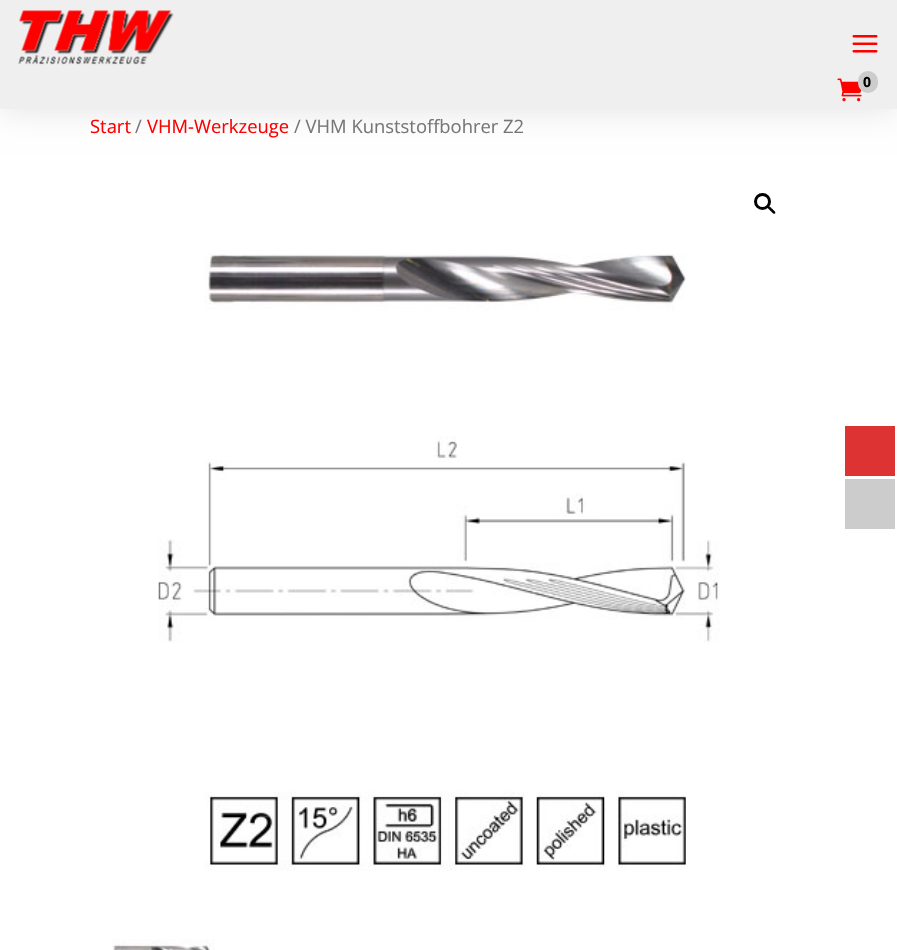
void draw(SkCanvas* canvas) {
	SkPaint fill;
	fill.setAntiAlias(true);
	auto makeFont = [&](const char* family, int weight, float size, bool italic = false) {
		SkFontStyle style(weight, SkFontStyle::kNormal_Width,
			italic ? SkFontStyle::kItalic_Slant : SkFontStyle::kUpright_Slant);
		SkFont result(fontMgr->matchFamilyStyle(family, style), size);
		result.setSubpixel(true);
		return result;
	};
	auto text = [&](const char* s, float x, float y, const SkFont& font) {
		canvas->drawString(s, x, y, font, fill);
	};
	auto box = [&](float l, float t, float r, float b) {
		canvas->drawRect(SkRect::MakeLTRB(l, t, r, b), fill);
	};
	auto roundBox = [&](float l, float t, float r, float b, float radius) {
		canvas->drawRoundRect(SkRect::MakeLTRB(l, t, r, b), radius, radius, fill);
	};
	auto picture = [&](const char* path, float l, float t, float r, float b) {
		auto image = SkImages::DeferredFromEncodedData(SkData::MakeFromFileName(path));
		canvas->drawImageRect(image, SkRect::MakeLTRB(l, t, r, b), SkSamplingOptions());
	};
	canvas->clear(0xFFFFFFFF);
	fill.setColor(0x1A000000);
	fill.setMaskFilter(SkMaskFilter::MakeBlur(kNormal_SkBlurStyle, 15.5f));
	canvas->drawRect(SkRect::MakeLTRB(0, 3, 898, 111), fill);
	fill.setMaskFilter(nullptr);
	fill.setColor(0xFFEFEFEF);
	box(0, 0, 897, 109);
	picture("image0.png", 18, 10, 174, 65);
	picture("image1.png", 852, 35, 878, 53);
	picture("image2.png", 837, 78, 862, 102);
	fill.setColor(0xFFCCCCCC);
	roundBox(858, 71, 878, 93, 10);
	fill.setStyle(SkPaint::kStroke_Style);
	fill.setStrokeWidth(3);
	fill.setColor(0xFF000000);
	canvas->drawCircle(762.5f, 201.5f, 7, fill);
	fill.setStyle(SkPaint::kFill_Style);
	canvas->drawPath(SkPathBuilder().moveTo(768, 206.5f).cubicTo(769.5f, 205, 771.5f, 208.5f, 772.5f, 209).cubicTo(773, 210, 776.5f, 212, 775, 213.5f).cubicTo(773.5f, 215, 771.5f, 211.5f, 770.5f, 211).cubicTo(770, 210, 766.5f, 208, 768, 206.5f).close().detach(), fill);
	picture("image3.png", 158, 253, 720, 871);
	picture("image4.png", 112, 939, 215, 950);
	fill.setColor(0xFFDD3333);
	box(845, 426, 895, 476);
	fill.setColor(0xFFCCCCCC);
	box(845, 479, 895, 529);
	auto font1 = makeFont("Open Sans", 700, 14);
	fill.setColor(0xFF000000);
	text("0", 863, 87, font1);
	auto font2 = makeFont("Open Sans", 400, 18.4f);
	fill.setColor(0xFFFF0000);
	text("Start", 90, 133, font2);
	fill.setColor(0xFF767676);
	text("/", 135, 133, font2);
	fill.setColor(0xFFFF0000);
	text("VHM-Werkzeuge", 147, 133, font2);
	fill.setColor(0xFF767676);
	text("/ VHM Kunststoffbohrer Z2", 294, 133, font2);
}
